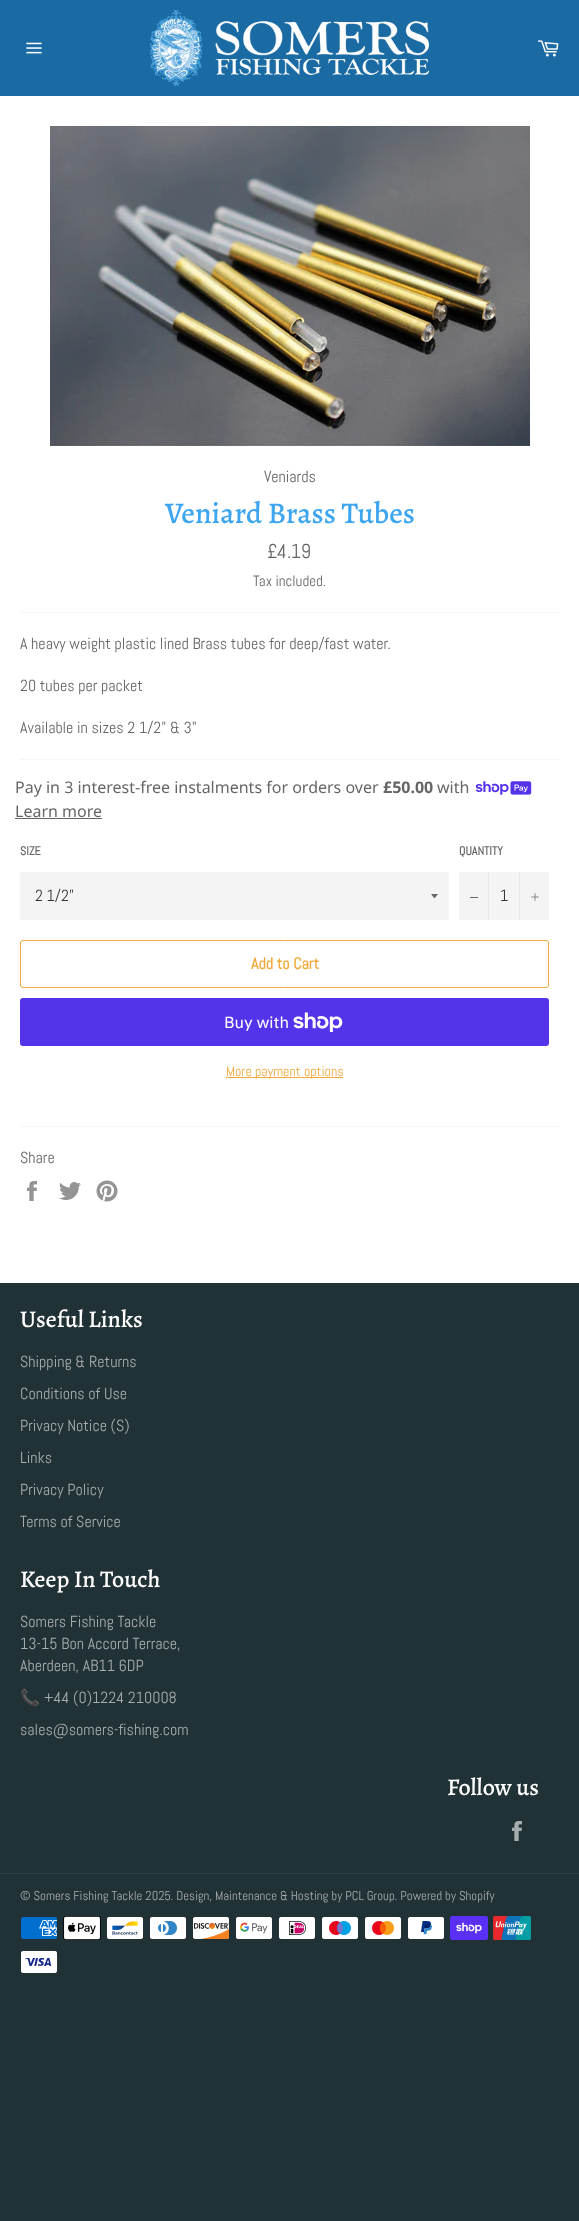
async function draw(canvas) {
	canvas.width = 579;
	canvas.height = 2221;
	const c = canvas.getContext('2d');
	c.miterLimit = 4;
	c.fontKerning = 'normal';
	async function loadImage(src) {
		const img = new Image();
		img.src = src;
		await img.decode();
		return img;
	}

	c.fillStyle = '#213236';
	c.fillRect(0, 0, 579, 2221);
	c.fillStyle = '#1a6aa3';
	c.fillRect(0, 0, 579, 96);
	c.drawImage(await loadImage('img1.png'), 26, 42, 16, 12);
	c.drawImage(await loadImage('img2.png'), 150, 10, 279, 76);
	c.drawImage(await loadImage('img3.png'), 537, 40, 22, 17);
	c.fillStyle = '#fff';
	c.fillRect(0, 96, 579, 1187);
	c.drawImage(await loadImage('img4.png'), 50, 126, 480, 320);
	c.font = '16px Abel';
	c.fillStyle = '#666';
	c.fillText('Veniards', 264, 482);
	c.font = '500 30px Alegreya';
	c.fillStyle = '#3ea6f0';
	c.fillText('Veniard Brass Tubes', 165, 523);
	c.font = '20px Abel';
	c.fillStyle = '#666';
	c.fillText('£4.19', 267, 558);
	c.font = '15px Abel';
	c.fillText('Tax included.', 253, 586);
	c.fillStyle = '#f7f7f7';
	c.fillRect(20, 612, 539, 1);
	c.font = '16px Abel';
	c.fillStyle = '#666';
	for (const [text, x, y] of [
		['A heavy weight plastic lined Brass tubes for deep/fast water.', 20, 649],
		['20 tubes per packet', 20, 691],
		['Available in sizes 2 1/2" & 3"', 20, 733],
	]) {
		c.fillText(text, x, y);
	}
	c.fillStyle = '#f7f7f7';
	c.fillRect(20, 759, 539, 1);
	c.font = '16px Noto Sans';
	c.fillStyle = '#666';
	c.fillText('Pay in 3 interest-free instalments for orders over', 15, 793);
	c.font = 'bold 16px Noto Sans';
	c.fillText('£50.00', 383, 793);
	c.font = '16px Noto Sans';
	c.fillText('with', 437, 793);
	c.drawImage(await loadImage('img5.png'), 475, 781, 57, 14);
	c.fillText('Learn more', 15, 817);
	c.fillRect(15, 818, 87, 1);
	c.font = 'bold 12px Abel';
	c.fillText('SIZE', 20, 855);
	c.fillStyle = '#f4f4f4';
	c.fillRect(20, 872, 429, 48);
	c.fillStyle = '#666';
	c.beginPath();
	c.moveTo(431, 894);
	c.bezierCurveTo(435.5, 899.5, 433.5, 899.5, 438, 894);
	c.closePath();
	c.fill();
	c.font = '16px Abel';
	c.fillStyle = '#333';
	c.fillText('2 1/2"', 35, 901);
	c.font = 'bold 12px Abel';
	c.fillStyle = '#666';
	c.fillText('QUANTITY', 459, 855);
	for (const [x, y, w, h, color] of [
		[459, 872, 90, 48, '#f4f4f4'],
		[488, 872, 1, 48, '#e7e7e7'],
		[470, 897, 8, 1, '#666'],
	]) {
		c.fillStyle = color;
		c.fillRect(x, y, w, h);
	}
	c.font = '16px Abel';
	c.fillStyle = '#333';
	c.fillText('1', 500, 901);
	c.fillStyle = '#e7e7e7';
	c.fillRect(519, 872, 1, 48);
	c.drawImage(await loadImage('img6.png'), 531, 893, 8, 8);
	c.beginPath();
	c.roundRect(20.5, 940.5, 528, 47, 2.5);
	c.strokeStyle = '#f0a93e';
	c.stroke();
	c.font = 'bold 16px Abel';
	c.fillStyle = '#f0a93e';
	c.fillText('Add to Cart', 251, 969);
	c.fillStyle = '#5433eb';
	c.beginPath();
	c.roundRect(20, 998, 529, 48, 3);
	c.fill();
	c.font = '16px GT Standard';
	c.fillStyle = '#fff';
	c.fillText('Buy with', 224, 1028);
	c.drawImage(await loadImage('img7.png'), 293, 1012, 50, 20);
	c.fillStyle = '#f0a93e';
	c.fillRect(226, 1077, 117, 1);
	c.font = '14px Abel';
	c.fillText('More payment options', 226, 1076);
	c.fillStyle = '#f7f7f7';
	c.fillRect(20, 1126, 539, 1);
	c.font = '16px Abel';
	c.fillStyle = '#666';
	c.fillText('Share', 20, 1163);
	c.drawImage(await loadImage('img8.png'), 27, 1181, 10, 20);
	c.drawImage(await loadImage('img9.png'), 59, 1182, 22, 18);
	c.drawImage(await loadImage('img10.png'), 96, 1180, 22, 22);
	c.font = '500 24px Alegreya';
	c.fillStyle = '#fff';
	c.fillText('Useful Links', 20, 1327);
	c.font = '16px Abel';
	c.fillStyle = '#a6adaf';
	for (const [text, x, y] of [
		['Shipping & Returns', 20, 1367],
		['Conditions of Use', 20, 1399],
		['Privacy Notice (S)', 20, 1431],
		['Links', 20, 1463],
		['Privacy Policy', 20, 1495],
		['Terms of Service', 20, 1527],
	]) {
		c.fillText(text, x, y);
	}
	c.font = '500 24px Alegreya';
	c.fillStyle = '#fff';
	c.fillText('Keep In Touch', 20, 1587);
	c.font = '16px Abel';
	c.fillStyle = '#a6adaf';
	for (const [text, x, y] of [
		['Somers Fishing Tackle', 20, 1627],
		['13-15 Bon Accord Terrace,', 20, 1649],
		['Aberdeen, AB11 6DP', 20, 1671],
	]) {
		c.fillText(text, x, y);
	}
	c.font = '16px Noto Color Emoji';
	c.fillText('📞', 20, 1703);
	c.font = '16px Abel';
	c.fillText('+44 (0)1224 210008', 44, 1703);
	c.fillText('sales@somers-fishing.com', 20, 1735);
	c.font = '500 24px Alegreya';
	c.fillStyle = '#fff';
	c.fillText('Follow us', 447, 1795);
	c.drawImage(await loadImage('img11.png'), 512, 1821, 10, 20);
	c.fillStyle = '#2b4146';
	c.fillRect(0, 1873, 579, 1);
	c.font = '12.8px Abel';
	c.fillStyle = '#a6adaf';
	c.fillText('© Somers Fishing Tackle 2025. Design, Maintenance & Hosting by PCL Group. Powered by Shopify', 20, 1900);
	c.drawImage(await loadImage('img12.png'), 21, 1917, 36, 22);
	c.drawImage(await loadImage('img13.png'), 63, 1916, 38, 24);
	c.drawImage(await loadImage('img14.png'), 107, 1917, 36, 22);
	c.drawImage(await loadImage('img15.png'), 150, 1917, 36, 22);
	c.drawImage(await loadImage('img16.png'), 193, 1917, 37, 22);
	c.drawImage(await loadImage('img17.png'), 236, 1917, 36, 22);
	c.drawImage(await loadImage('img18.png'), 279, 1917, 36, 22);
	c.drawImage(await loadImage('img19.png'), 322, 1917, 36, 22);
	c.drawImage(await loadImage('img20.png'), 365, 1917, 36, 22);
	c.drawImage(await loadImage('img21.png'), 408, 1917, 36, 22);
	c.drawImage(await loadImage('img22.png'), 450, 1916, 38, 24);
	c.drawImage(await loadImage('img23.png'), 493, 1916, 38, 24);
	c.drawImage(await loadImage('img24.png'), 21, 1951, 36, 22);
}

draw(document.querySelector('canvas'));
